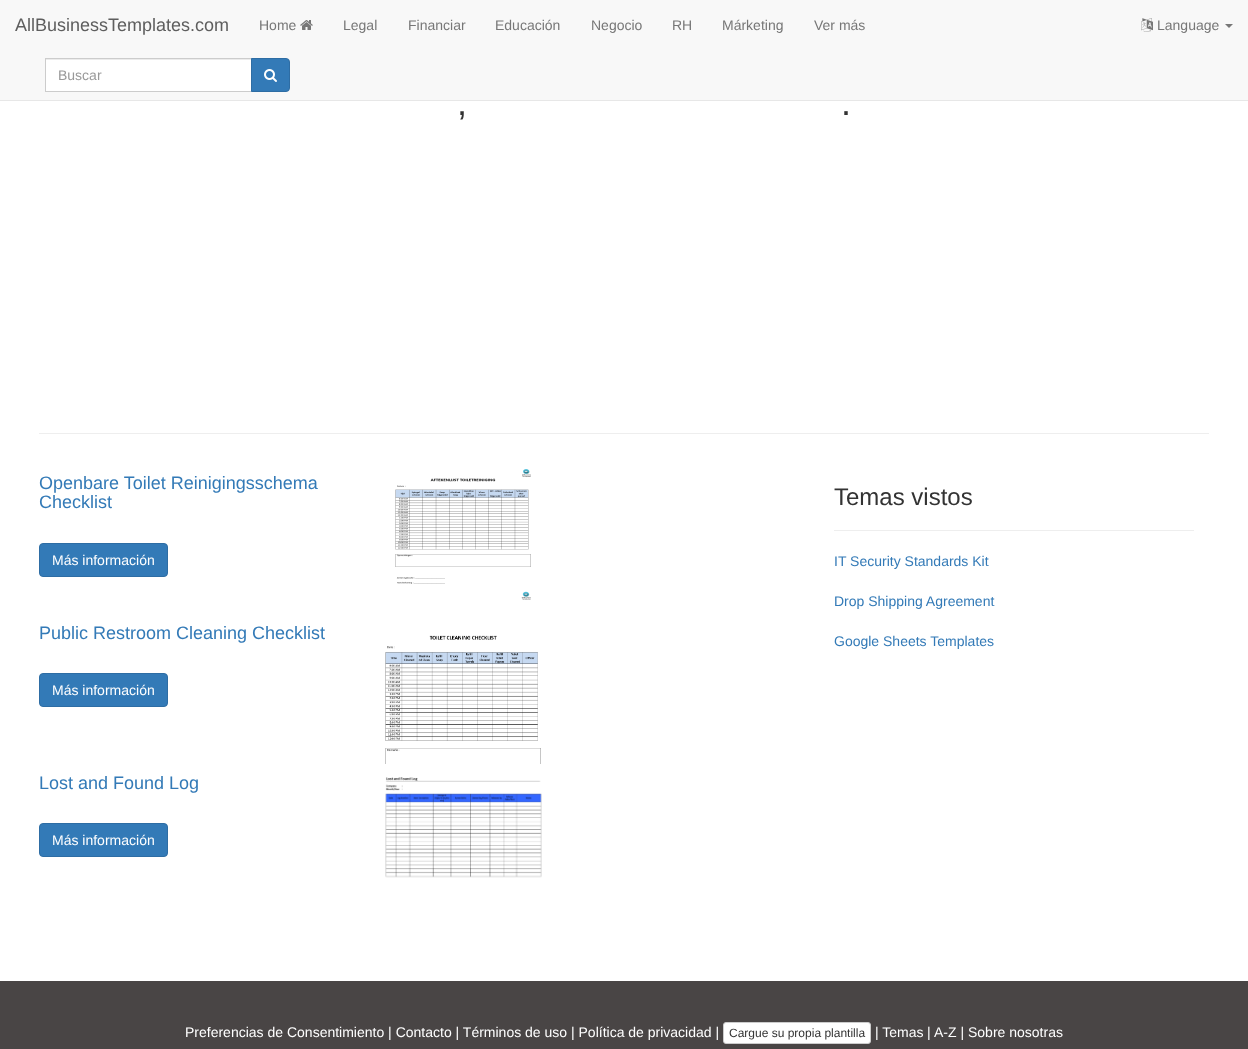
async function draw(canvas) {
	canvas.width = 1248;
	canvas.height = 1049;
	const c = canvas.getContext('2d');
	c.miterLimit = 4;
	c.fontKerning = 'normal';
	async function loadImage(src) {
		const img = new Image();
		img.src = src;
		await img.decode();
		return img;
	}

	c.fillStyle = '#fff';
	c.fillRect(0, 0, 1248, 1049);
	c.fillStyle = '#f8f8f8';
	c.fillRect(0, 0, 1248, 100);
	c.fillStyle = '#e7e7e7';
	c.fillRect(0, 100, 1248, 1);
	c.font = '18px Liberation Sans';
	c.fillStyle = '#5e5e5e';
	c.fillText('AllBusinessTemplates.com', 15, 31);
	c.font = '14px Liberation Sans';
	c.fillStyle = '#777';
	c.fillText('Home', 259, 30);
	c.drawImage(await loadImage('img1.png'), 300, 20, 13, 10);
	for (const [text, x, y] of [
		['Legal', 343, 30],
		['Financiar', 408, 30],
		['Educación', 495, 30],
		['Negocio', 591, 30],
		['RH', 672, 30],
		['Márketing', 722, 30],
		['Ver más', 814, 30],
	]) {
		c.fillText(text, x, y);
	}
	c.drawImage(await loadImage('img2.png'), 1141, 18, 12, 14);
	c.fillText('Language', 1157, 30);
	c.beginPath();
	c.moveTo(1225, 24);
	c.lineTo(1233, 24);
	c.lineTo(1229, 28);
	c.closePath();
	c.fill();
	c.fillStyle = '#fff';
	c.fillRect(46, 60, 205, 31);
	c.fillStyle = '#ececec';
	c.fillRect(46, 59, 205, 1);
	c.strokeStyle = '#ccc';
	c.strokeRect(45.5, 58.5, 206, 33);
	c.fillStyle = '#999';
	c.fillText('Buscar', 58, 80);
	c.fillStyle = '#337ab7';
	c.beginPath();
	c.roundRect(251.5, 58.5, 38, 33, [0, 3.5, 3.5, 0]);
	c.fill();
	c.strokeStyle = '#2e6da4';
	c.stroke();
	c.drawImage(await loadImage('img3.png'), 264, 69, 13, 13);
	c.font = '36px Liberation Sans';
	c.fillStyle = '#333';
	c.fillText(',', 457, 115);
	c.fillText('.', 841, 115);
	c.fillStyle = '#eee';
	c.fillRect(39, 433, 1170, 1);
	c.font = '18px Liberation Sans';
	c.fillStyle = '#337ab7';
	c.fillText('Openbare Toilet Reinigingsschema', 39, 489);
	c.fillText('Checklist', 39, 508);
	c.beginPath();
	c.roundRect(39.5, 543.5, 128, 33, 3.5);
	c.fill();
	c.stroke();
	c.font = '14px Liberation Sans';
	c.fillStyle = '#fff';
	c.fillText('Más información', 52, 565);
	c.drawImage(await loadImage('img4.png'), 395, 469, 136, 131);
	c.font = '18px Liberation Sans';
	c.fillStyle = '#337ab7';
	c.fillText('Public Restroom Cleaning Checklist', 39, 639);
	c.beginPath();
	c.roundRect(39.5, 673.5, 128, 33, 3.5);
	c.fill();
	c.stroke();
	c.font = '14px Liberation Sans';
	c.fillStyle = '#fff';
	c.fillText('Más información', 52, 695);
	c.drawImage(await loadImage('img5.png'), 385, 635, 156, 129);
	c.font = '18px Liberation Sans';
	c.fillStyle = '#337ab7';
	c.fillText('Lost and Found Log', 39, 789);
	c.beginPath();
	c.roundRect(39.5, 823.5, 128, 33, 3.5);
	c.fill();
	c.stroke();
	c.font = '14px Liberation Sans';
	c.fillStyle = '#fff';
	c.fillText('Más información', 52, 845);
	c.drawImage(await loadImage('img6.png'), 385, 777, 157, 101);
	c.font = '24px Liberation Sans';
	c.fillStyle = '#333';
	c.fillText('Temas vistos', 834, 505);
	c.fillStyle = '#eee';
	c.fillRect(834, 530, 360, 1);
	c.font = '14px Liberation Sans';
	c.fillStyle = '#337ab7';
	for (const [text, x, y] of [
		['IT Security Standards Kit', 834, 566],
		['Drop Shipping Agreement', 834, 606],
		['Google Sheets Templates', 834, 646],
	]) {
		c.fillText(text, x, y);
	}
	c.fillStyle = '#494545';
	c.fillRect(0, 981, 1248, 68);
	c.fillStyle = '#fff';
	c.fillText('Preferencias de Consentimiento | Contacto | Términos de uso | Política de privacidad |', 185, 1037);
	c.beginPath();
	c.roundRect(723.5, 1022.5, 147, 21, 2.5);
	c.fill();
	c.strokeStyle = '#ccc';
	c.stroke();
	c.font = '12px Liberation Sans';
	c.fillStyle = '#333';
	c.fillText('Cargue su propia plantilla', 729, 1037);
	c.font = '14px Liberation Sans';
	c.fillStyle = '#fff';
	for (const [text, x, y] of [
		['| Temas', 875, 1037],
		['|', 927, 1037],
		['A-Z | Sobre nosotras', 934, 1037],
	]) {
		c.fillText(text, x, y);
	}
}

draw(document.querySelector('canvas'));
